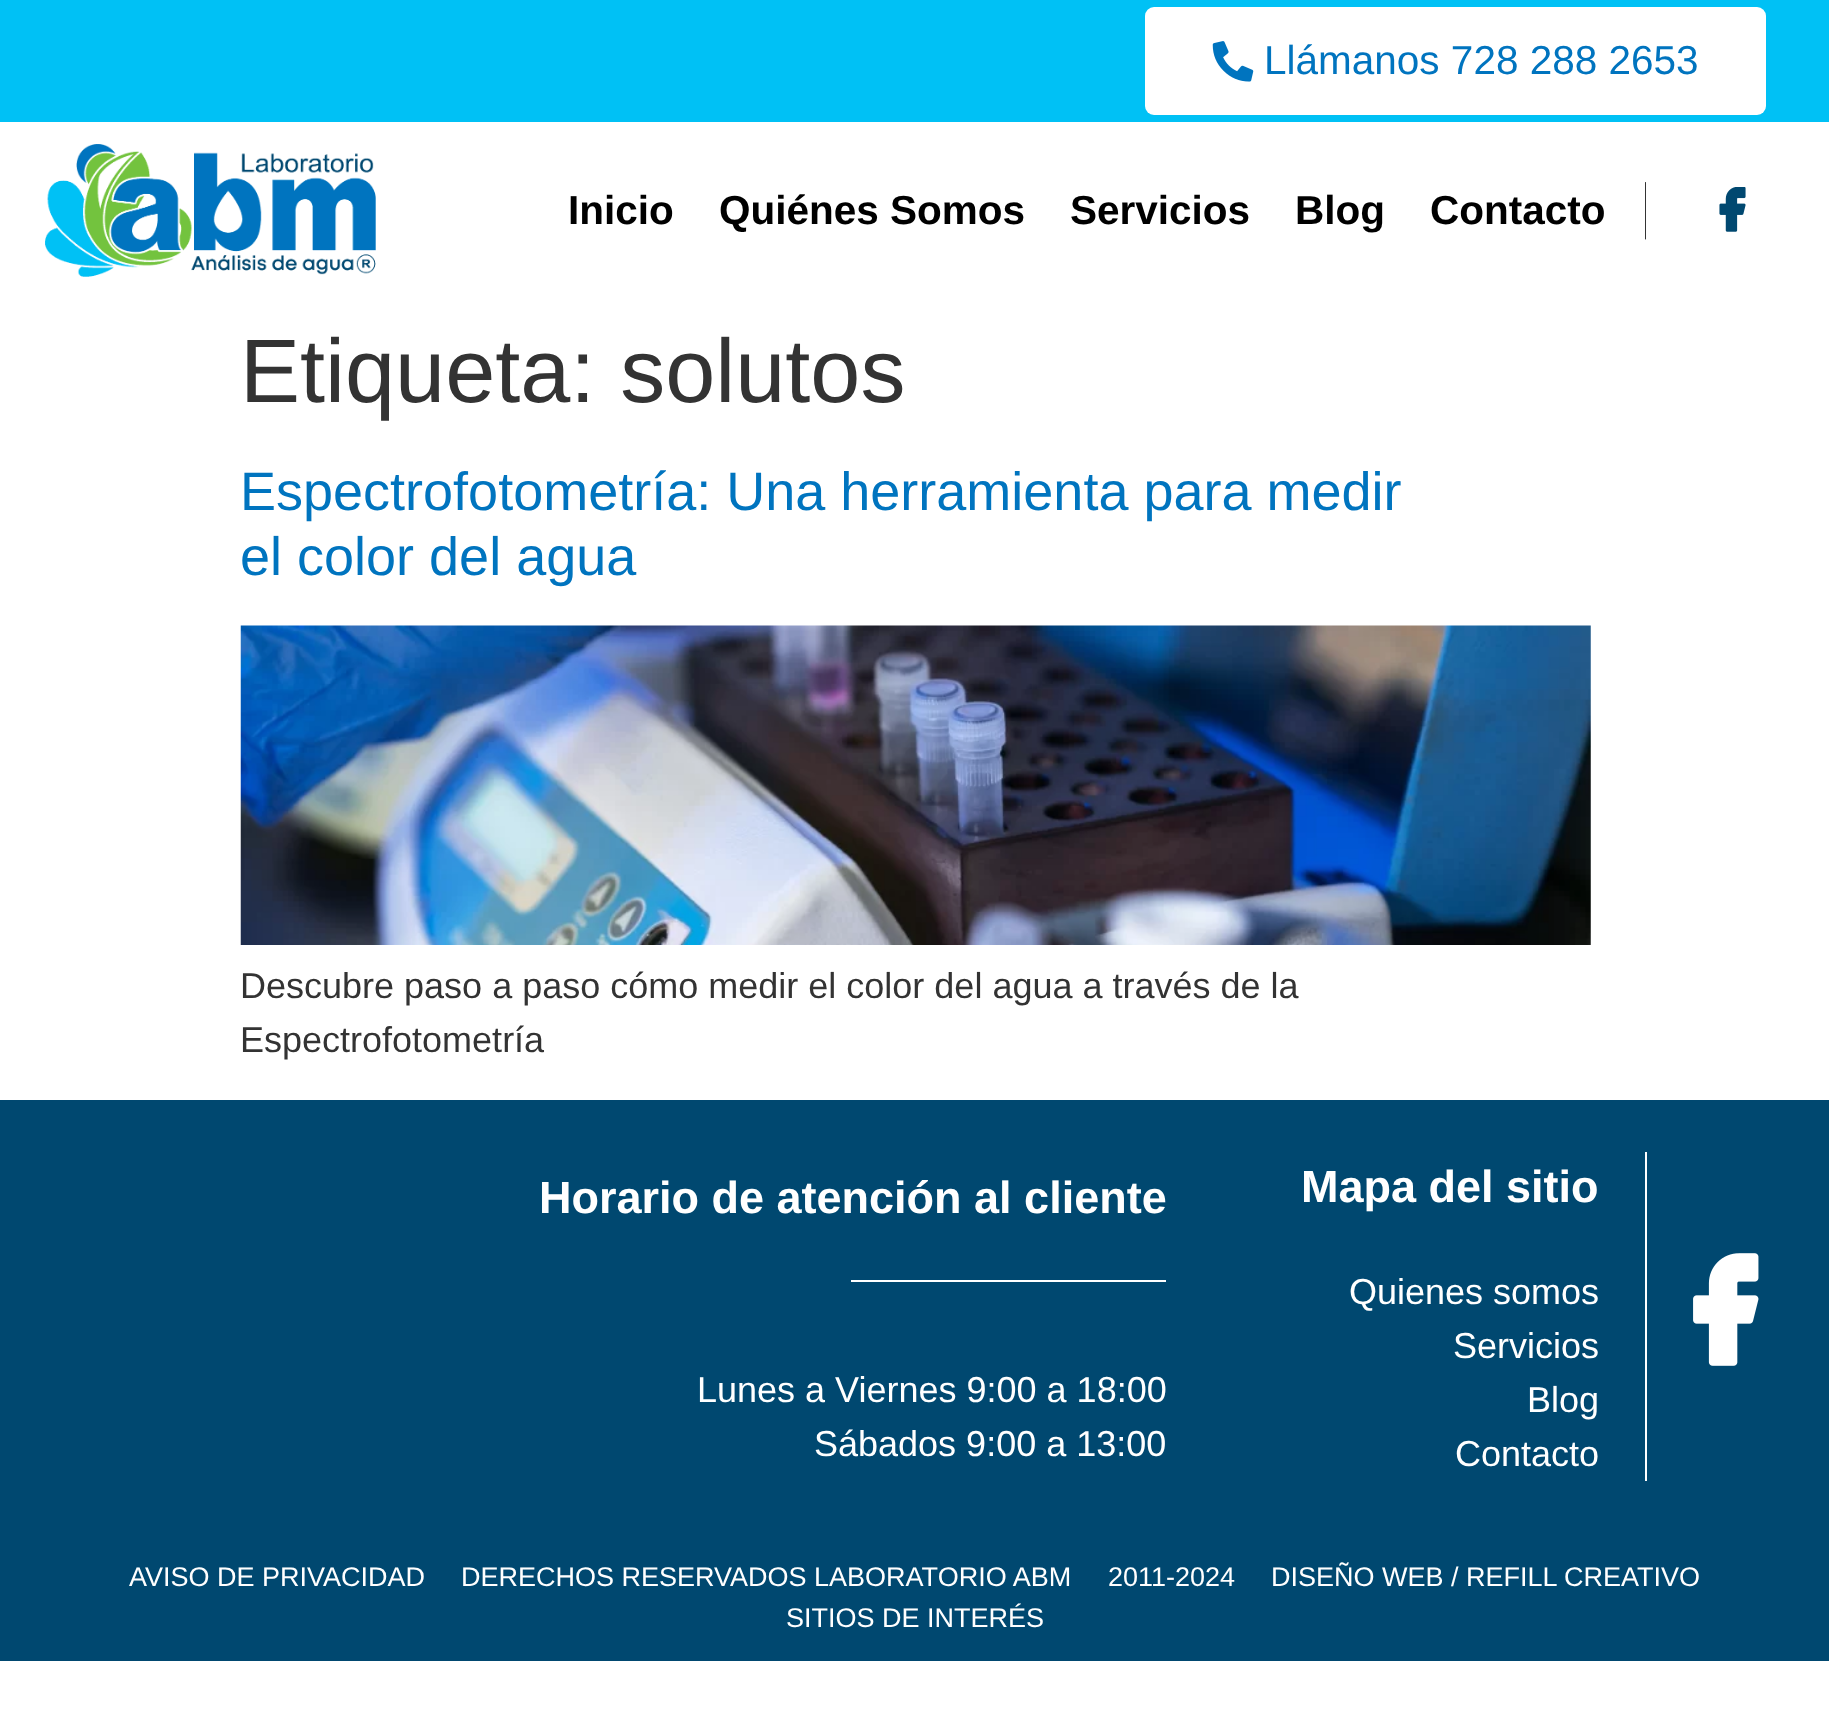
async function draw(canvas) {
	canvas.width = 1829;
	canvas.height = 1730;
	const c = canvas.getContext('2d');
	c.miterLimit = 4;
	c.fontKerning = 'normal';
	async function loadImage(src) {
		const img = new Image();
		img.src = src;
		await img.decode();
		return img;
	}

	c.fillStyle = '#fff';
	c.fillRect(0, 0, 1829, 1730);
	c.fillStyle = '#00c1f5';
	c.fillRect(0, 0, 1829, 122);
	c.fillStyle = '#fff';
	c.beginPath();
	c.roundRect(1145, 7, 621, 108, 9);
	c.fill();
	c.drawImage(await loadImage('img1.png'), 1212, 41, 42, 41);
	c.font = '40.5px Liberation Sans';
	c.fillStyle = '#0074bf';
	c.fillText('Llámanos 728 288 2653', 1264, 74);
	c.drawImage(await loadImage('img2.png'), 45, 144, 331, 133);
	c.font = 'bold 40.5px Liberation Sans';
	c.fillStyle = '#000';
	for (const [text, x, y] of [
		['Inicio', 568, 224],
		['Quiénes Somos', 719, 224],
		['Servicios', 1070, 224],
		['Blog', 1295, 224],
		['Contacto', 1430, 224],
	]) {
		c.fillText(text, x, y);
	}
	c.beginPath();
	c.moveTo(1645.5, 182.5);
	c.lineTo(1645.5, 239);
	c.strokeStyle = '#000';
	c.lineWidth = 0.8;
	c.lineCap = 'round';
	c.stroke();
	c.drawImage(await loadImage('img3.png'), 1719, 187, 27, 45);
	c.font = '90px Liberation Sans';
	c.fillStyle = '#333';
	c.fillText('Etiqueta: solutos', 240, 402);
	c.font = '54px Liberation Sans';
	c.fillStyle = '#0074bf';
	c.fillText('Espectrofotometría: Una herramienta para medir', 240, 510);
	c.fillText('el color del agua', 240, 575);
	c.drawImage(await loadImage('img4.png'), 240, 625, 1351, 320);
	c.font = '36px Liberation Sans';
	c.fillStyle = '#333';
	c.fillText('Descubre paso a paso cómo medir el color del agua a través de la', 240, 998);
	c.fillText('Espectrofotometría', 240, 1052);
	c.fillStyle = '#004870';
	c.fillRect(0, 1100, 1829, 561);
	c.font = 'bold 45px Liberation Sans';
	c.fillStyle = '#fff';
	c.fillText('Horario de atención al cliente', 539, 1213);
	c.fillRect(851, 1280, 315, 2);
	c.font = '36px Liberation Sans';
	c.fillText('Lunes a Viernes 9:00 a 18:00', 697, 1402);
	c.fillText('Sábados 9:00 a 13:00', 814, 1456);
	c.fillRect(1645, 1152, 2, 329);
	c.font = 'bold 45px Liberation Sans';
	c.fillText('Mapa del sitio', 1301, 1202);
	c.font = '36px Liberation Sans';
	for (const [text, x, y] of [
		['Quienes somos', 1349, 1304],
		['Servicios', 1453, 1358],
		['Blog', 1527, 1412],
		['Contacto', 1455, 1466],
	]) {
		c.fillText(text, x, y);
	}
	c.drawImage(await loadImage('img5.png'), 1693, 1253, 66, 113);
	c.font = '27px Liberation Sans';
	for (const [text, x, y] of [
		['AVISO DE PRIVACIDAD', 129, 1586],
		['DERECHOS RESERVADOS LABORATORIO ABM', 461, 1586],
		['2011-2024', 1108, 1586],
		['DISEÑO WEB / REFILL CREATIVO', 1271, 1586],
		['SITIOS DE INTERÉS', 786, 1627],
	]) {
		c.fillText(text, x, y);
	}
}

draw(document.querySelector('canvas'));
